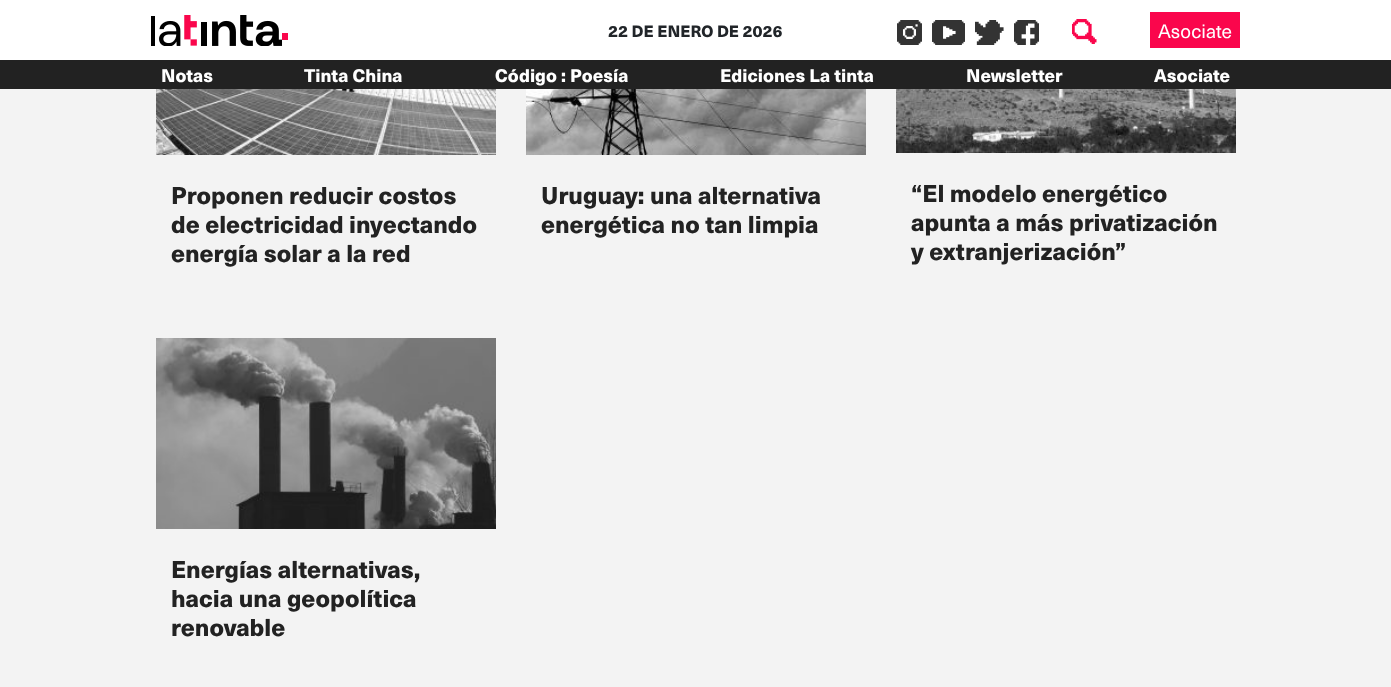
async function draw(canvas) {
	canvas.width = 1391;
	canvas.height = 687;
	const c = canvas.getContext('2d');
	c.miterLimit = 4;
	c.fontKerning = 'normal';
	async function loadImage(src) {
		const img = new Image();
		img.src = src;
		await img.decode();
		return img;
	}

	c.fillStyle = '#f3f3f3';
	c.fillRect(0, 0, 1391, 687);
	c.fillStyle = '#fff';
	c.fillRect(0, 0, 1391, 60);
	c.drawImage(await loadImage('img1.png'), 151, 15, 137, 31);
	c.font = '900 16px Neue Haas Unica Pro';
	c.fillStyle = '#212529';
	c.fillText('22 DE ENERO DE 2026', 608, 37);
	c.drawImage(await loadImage('img2.png'), 897, 20, 25, 25);
	c.drawImage(await loadImage('img3.png'), 932, 20, 33, 25);
	c.drawImage(await loadImage('img4.png'), 975, 20, 29, 25);
	c.drawImage(await loadImage('img5.png'), 1014, 20, 25, 25);
	c.drawImage(await loadImage('img6.png'), 1072, 19, 25, 25);
	c.fillStyle = '#fa064c';
	c.fillRect(1150, 12, 90, 36);
	c.font = '19px Neue Haas Unica Pro';
	c.fillStyle = '#fff';
	c.fillText('Asociate', 1158, 38);
	c.fillStyle = '#222';
	c.fillRect(0, 60, 1391, 29);
	c.font = '900 18px Neue Haas Unica Pro';
	c.fillStyle = '#fff';
	for (const [text, x, y] of [
		['Notas', 161, 82],
		['Tinta China', 304, 82],
		['Código : Poesía', 495, 82],
		['Ediciones La tinta', 720, 82],
		['Newsletter', 966, 82],
		['Asociate', 1154, 82],
	]) {
		c.fillText(text, x, y);
	}
	c.drawImage(await loadImage('img7.png'), 156, 89, 340, 66);
	c.font = '900 24px Neue Haas Unica Pro';
	c.fillStyle = '#222';
	for (const [text, x, y] of [
		['Proponen reducir costos', 171, 204],
		['de electricidad inyectando', 171, 233],
		['energía solar a la red', 171, 262],
	]) {
		c.fillText(text, x, y);
	}
	c.drawImage(await loadImage('img8.png'), 526, 89, 340, 66);
	c.fillText('Uruguay: una alternativa', 541, 204);
	c.fillText('energética no tan limpia', 541, 233);
	c.drawImage(await loadImage('img9.png'), 896, 89, 340, 64);
	for (const [text, x, y] of [
		['“El modelo energético', 911, 202],
		['apunta a más privatización', 911, 231],
		['y extranjerización”', 911, 260],
	]) {
		c.fillText(text, x, y);
	}
	c.drawImage(await loadImage('img10.png'), 156, 338, 340, 191);
	for (const [text, x, y] of [
		['Energías alternativas,', 171, 578],
		['hacia una geopolítica', 171, 607],
		['renovable', 171, 636],
	]) {
		c.fillText(text, x, y);
	}
}

draw(document.querySelector('canvas'));
